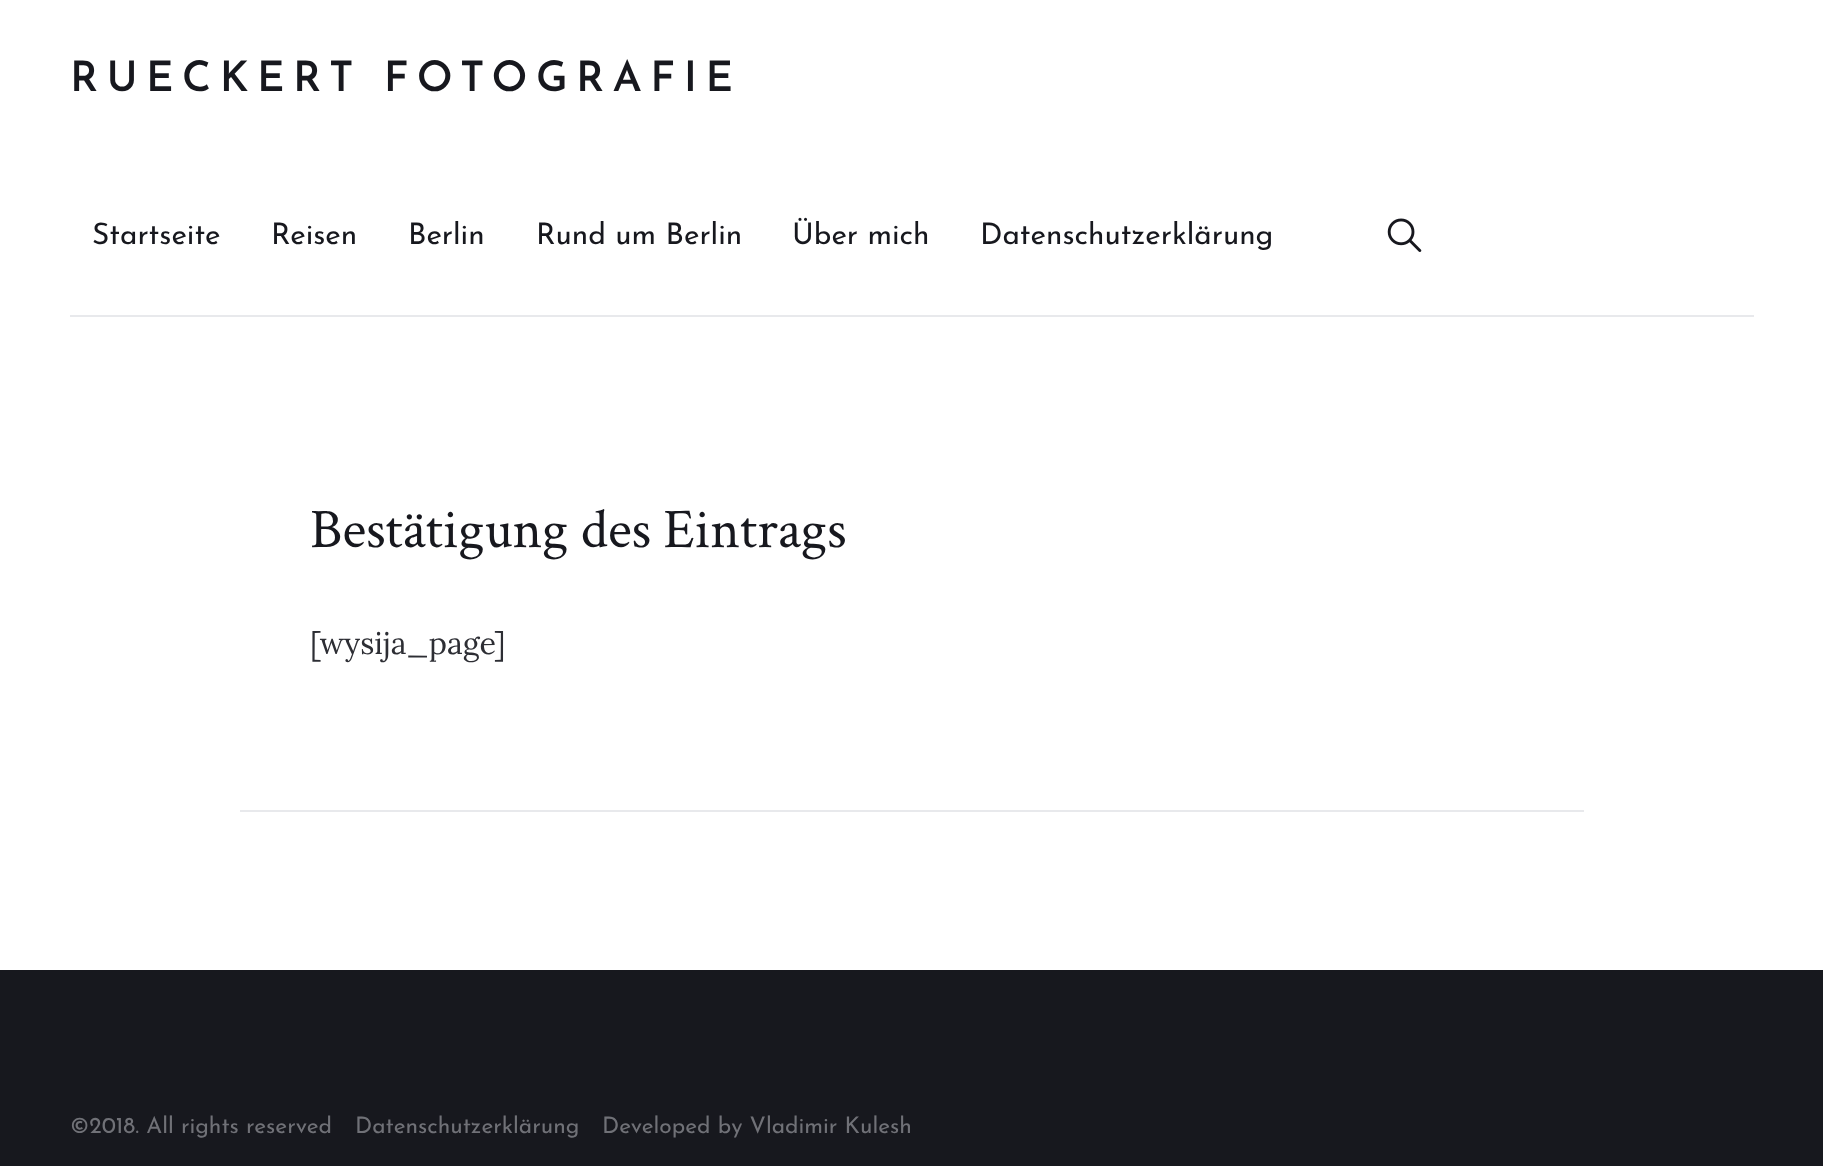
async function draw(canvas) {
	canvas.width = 1823;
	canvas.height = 1166;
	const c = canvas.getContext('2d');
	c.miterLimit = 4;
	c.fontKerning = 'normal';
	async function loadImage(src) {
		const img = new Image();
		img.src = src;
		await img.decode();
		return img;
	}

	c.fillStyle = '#fff';
	c.fillRect(0, 0, 1823, 1166);
	c.letterSpacing = '8.4px';
	c.font = '600 42px Josefin Sans';
	c.fillStyle = '#17181e';
	c.fillText('RUECKERT FOTOGRAFIE', 70, 91);
	c.letterSpacing = '0px';
	c.font = '29.75px Josefin Sans';
	for (const [text, x, y] of [
		['Startseite', 92, 244],
		['Reisen', 271, 244],
		['Berlin', 408, 244],
		['Rund um Berlin', 536, 244],
		['Über mich', 792, 244],
		['Datenschutzerklärung', 980, 244],
	]) {
		c.fillText(text, x, y);
	}
	c.drawImage(await loadImage('img1.png'), 1387, 218, 35, 34);
	c.fillStyle = '#e8e9ec';
	c.fillRect(70, 315, 1684, 2);
	c.fillRect(240, 810, 1344, 2);
	c.font = '56px Crimson Text';
	c.fillStyle = '#17181e';
	c.fillText('Bestätigung des Eintrags', 310, 547);
	c.font = '30.5px Lora';
	c.fillStyle = '#2d2e34';
	c.fillText('[wysija_page]', 310, 654);
	c.fillStyle = '#17181e';
	c.fillRect(0, 970, 1823, 196);
	c.font = '22.75px Josefin Sans';
	c.fillStyle = '#707177';
	for (const [text, x, y] of [
		['©2018. All rights reserved', 70, 1133],
		['Datenschutzerklärung', 355, 1133],
		['Developed by Vladimir Kulesh', 602, 1133],
	]) {
		c.fillText(text, x, y);
	}
}

draw(document.querySelector('canvas'));
